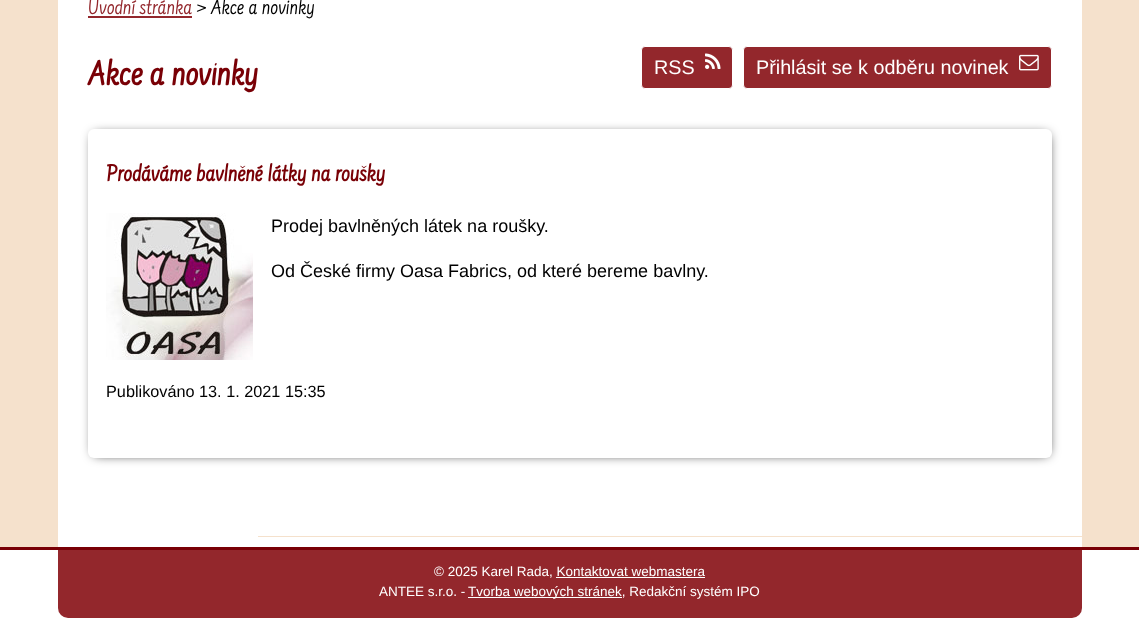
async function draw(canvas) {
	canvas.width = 1139;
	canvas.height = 631;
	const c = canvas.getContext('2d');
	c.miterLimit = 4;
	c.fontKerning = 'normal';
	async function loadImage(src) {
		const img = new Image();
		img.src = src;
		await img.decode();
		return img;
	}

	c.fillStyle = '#fff';
	c.fillRect(0, 0, 1139, 631);
	for (const [x, y, w, h, color] of [
		[0, 0, 1139, 547, '#f5e1cc'],
		[58, 536, 200, 1, '#fff'],
		[58, 0, 1024, 536, '#fff'],
	]) {
		c.fillStyle = color;
		c.fillRect(x, y, w, h);
	}
	c.font = '22px Farsan';
	c.fillStyle = '#93272c';
	c.fillText('Úvodní stránka', 88, 14);
	c.fillRect(88, 16, 104, 2);
	c.fillStyle = '#000';
	c.fillText('> Akce a novinky', 196, 14);
	c.font = 'bold 36px Farsan';
	c.fillStyle = '#790006';
	c.fillText('Akce a novinky', 88, 85);
	c.fillStyle = '#93272c';
	c.beginPath();
	c.roundRect(641.5, 46.5, 91, 42, 3.5);
	c.fill();
	c.strokeStyle = '#fff';
	c.stroke();
	c.font = '19.75px Liberation Sans';
	c.fillStyle = '#fff';
	c.fillText('RSS', 654, 74);
	c.drawImage(await loadImage('img1.png'), 705, 53, 16, 16);
	c.fillStyle = '#93272c';
	c.beginPath();
	c.roundRect(743.5, 46.5, 308, 42, 3.5);
	c.fill();
	c.stroke();
	c.fillStyle = '#fff';
	c.fillText('Přihlásit se k odběru novinek', 756, 74);
	c.drawImage(await loadImage('img2.png'), 1019, 54, 20, 17);
	c.fillStyle = '#000';
	c.filter = 'blur(6px)';
	c.beginPath();
	c.roundRect(94, 135, 954, 319, 1);
	c.fill();
	c.filter = 'none';
	c.fillStyle = '#fff';
	c.beginPath();
	c.roundRect(88, 129, 964, 329, 6);
	c.fill();
	c.font = 'bold 24.25px Farsan';
	c.fillStyle = '#790006';
	c.fillText('Prodáváme bavlněné látky na roušky', 106, 181);
	c.drawImage(await loadImage('img3.png'), 106, 213, 147, 147);
	c.font = '18px Liberation Sans';
	c.fillStyle = '#000';
	c.fillText('Prodej bavlněných látek na roušky.', 271, 232);
	c.fillText('Od České firmy Oasa Fabrics, od které bereme bavlny.', 271, 277);
	c.font = '16.25px Liberation Sans';
	c.fillText('Publikováno 13. 1. 2021 15:35', 106, 397);
	c.fillStyle = '#fff';
	c.fillRect(58, 537, 1024, 10);
	c.fillStyle = '#790006';
	c.fillRect(0, 547, 1139, 3);
	c.fillStyle = '#93272c';
	c.beginPath();
	c.roundRect(58, 550, 1024, 68, [0, 0, 10, 10]);
	c.fill();
	c.font = '13.5px Liberation Sans';
	c.fillStyle = '#fff';
	c.fillText('© 2025 Karel Rada, Kontaktovat webmastera', 434, 576);
	c.fillRect(556, 577, 149, 1);
	c.fillText('ANTEE s.r.o. -', 379, 596);
	c.fillRect(468, 597, 154, 1);
	c.fillText('Tvorba webových stránek, Redakční systém IPO', 468, 596);
}

draw(document.querySelector('canvas'));
